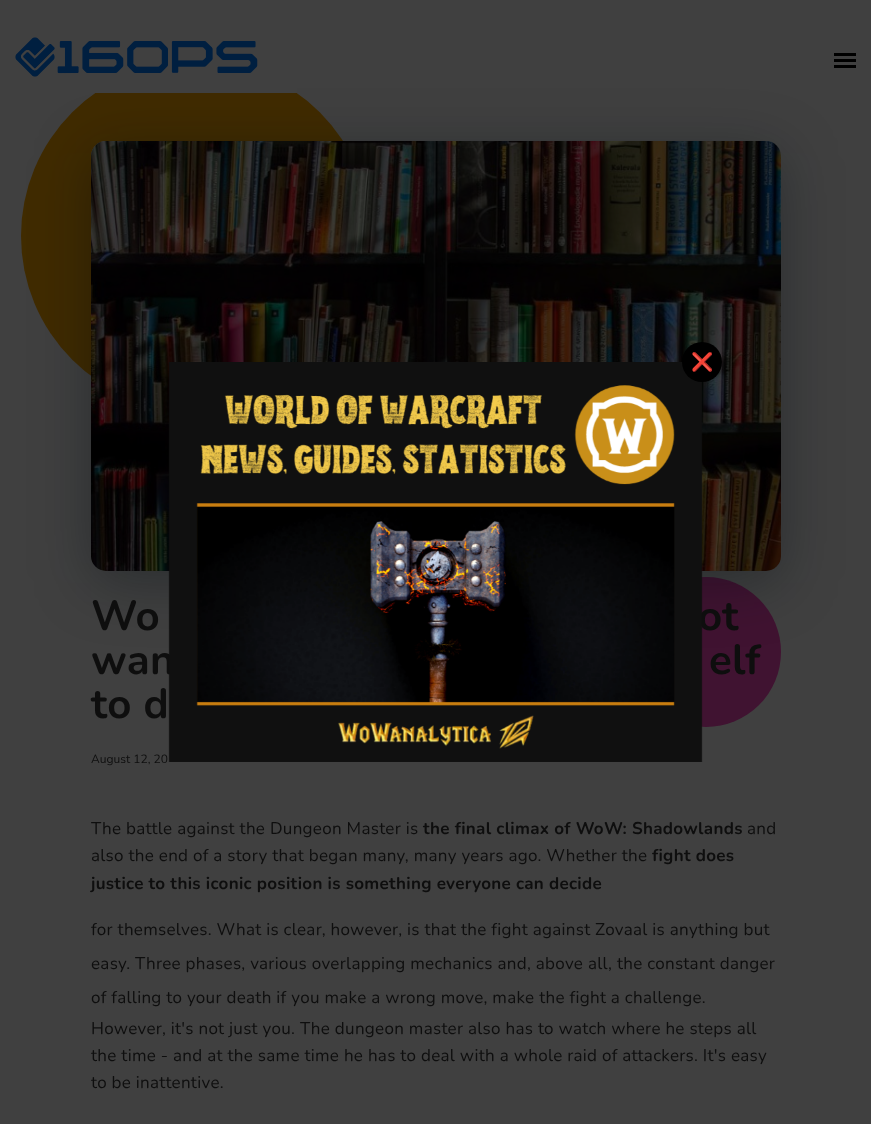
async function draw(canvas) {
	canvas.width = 871;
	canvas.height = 1124;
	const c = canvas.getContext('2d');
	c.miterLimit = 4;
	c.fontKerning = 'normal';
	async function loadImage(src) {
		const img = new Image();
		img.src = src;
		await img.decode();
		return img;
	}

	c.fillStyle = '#404040';
	c.fillRect(0, 0, 871, 1124);
	c.fillStyle = '#402b00';
	c.beginPath();
	c.arc(196, 236, 175, 0, 2 * Math.PI);
	c.fill();
	c.fillStyle = '#401331';
	c.beginPath();
	c.arc(706, 652, 75, 0, 2 * Math.PI);
	c.fill();
	c.fillStyle = '#00080d59';
	c.filter = 'blur(29px)';
	c.beginPath();
	c.roundRect(91, 153, 690, 430, 15);
	c.fill();
	c.filter = 'none';
	c.fillStyle = '#404040';
	c.beginPath();
	c.roundRect(91, 141, 690, 430, 15);
	c.fill();
	c.drawImage(await loadImage('img3.png'), 91, 141, 690, 430);
	c.letterSpacing = '0.3px';
	c.font = 'bold 42px Nunito';
	c.fillStyle = '#0e0e0e';
	c.fillText('ot', 698, 630);
	c.fillText('wan', 91, 674);
	c.drawImage(await loadImage('img1.png'), 168, 362, 535, 400);
	c.fillStyle = '#000';
	c.beginPath();
	c.arc(702, 362, 20, 0, 2 * Math.PI);
	c.fill();
	c.letterSpacing = '0px';
	c.font = '18px Noto Color Emoji';
	c.fillStyle = '#fff';
	c.fillText('❌', 691, 368);
	c.fillStyle = '#404040';
	c.fillRect(95, 61, 202, 32);
	c.drawImage(await loadImage('img2.png'), 15, 37, 243, 40);
	for (const [x, y, w, h, color] of [
		[834, 53, 22, 3, '#000'],
		[834, 59, 22, 3, '#000'],
		[834, 65, 22, 3, '#000'],
	]) {
		c.fillStyle = color;
		c.fillRect(x, y, w, h);
	}
	c.letterSpacing = '0.3px';
	c.font = 'bold 42px Nunito';
	c.fillStyle = '#0e0e0e';
	for (const [text, x, y] of [
		['Wo', 91, 630],
		['elf', 709, 674],
		['to d', 91, 718],
	]) {
		c.fillText(text, x, y);
	}
	c.letterSpacing = '0px';
	c.font = '12px Nunito';
	c.fillText('August 12, 20', 91, 763);
	c.letterSpacing = '0.3px';
	c.font = '17px Nunito';
	c.fillText('The battle against the Dungeon Master is', 91, 834);
	c.font = 'bold 17px Nunito';
	c.fillText('the final climax of WoW: Shadowlands', 423, 834);
	c.font = '17px Nunito';
	c.fillText('and', 747, 834);
	c.fillText('also the end of a story that began many, many years ago. Whether the', 91, 861);
	c.font = 'bold 17px Nunito';
	c.fillText('fight does', 652, 861);
	c.fillText('justice to this iconic position is something everyone can decide', 91, 889);
	c.font = '17px Nunito';
	for (const [text, x, y] of [
		['for themselves. What is clear, however, is that the fight against Zovaal is anything but', 91, 935],
		['easy. Three phases, various overlapping mechanics and, above all, the constant danger', 91, 969],
		['of falling to your death if you make a wrong move, make the fight a challenge.', 91, 1003],
		['However, it\'s not just you. The dungeon master also has to watch where he steps all', 91, 1034],
		['the time - and at the same time he has to deal with a whole raid of attackers. It\'s easy', 91, 1061],
		['to be inattentive.', 91, 1088],
	]) {
		c.fillText(text, x, y);
	}
}

draw(document.querySelector('canvas'));
